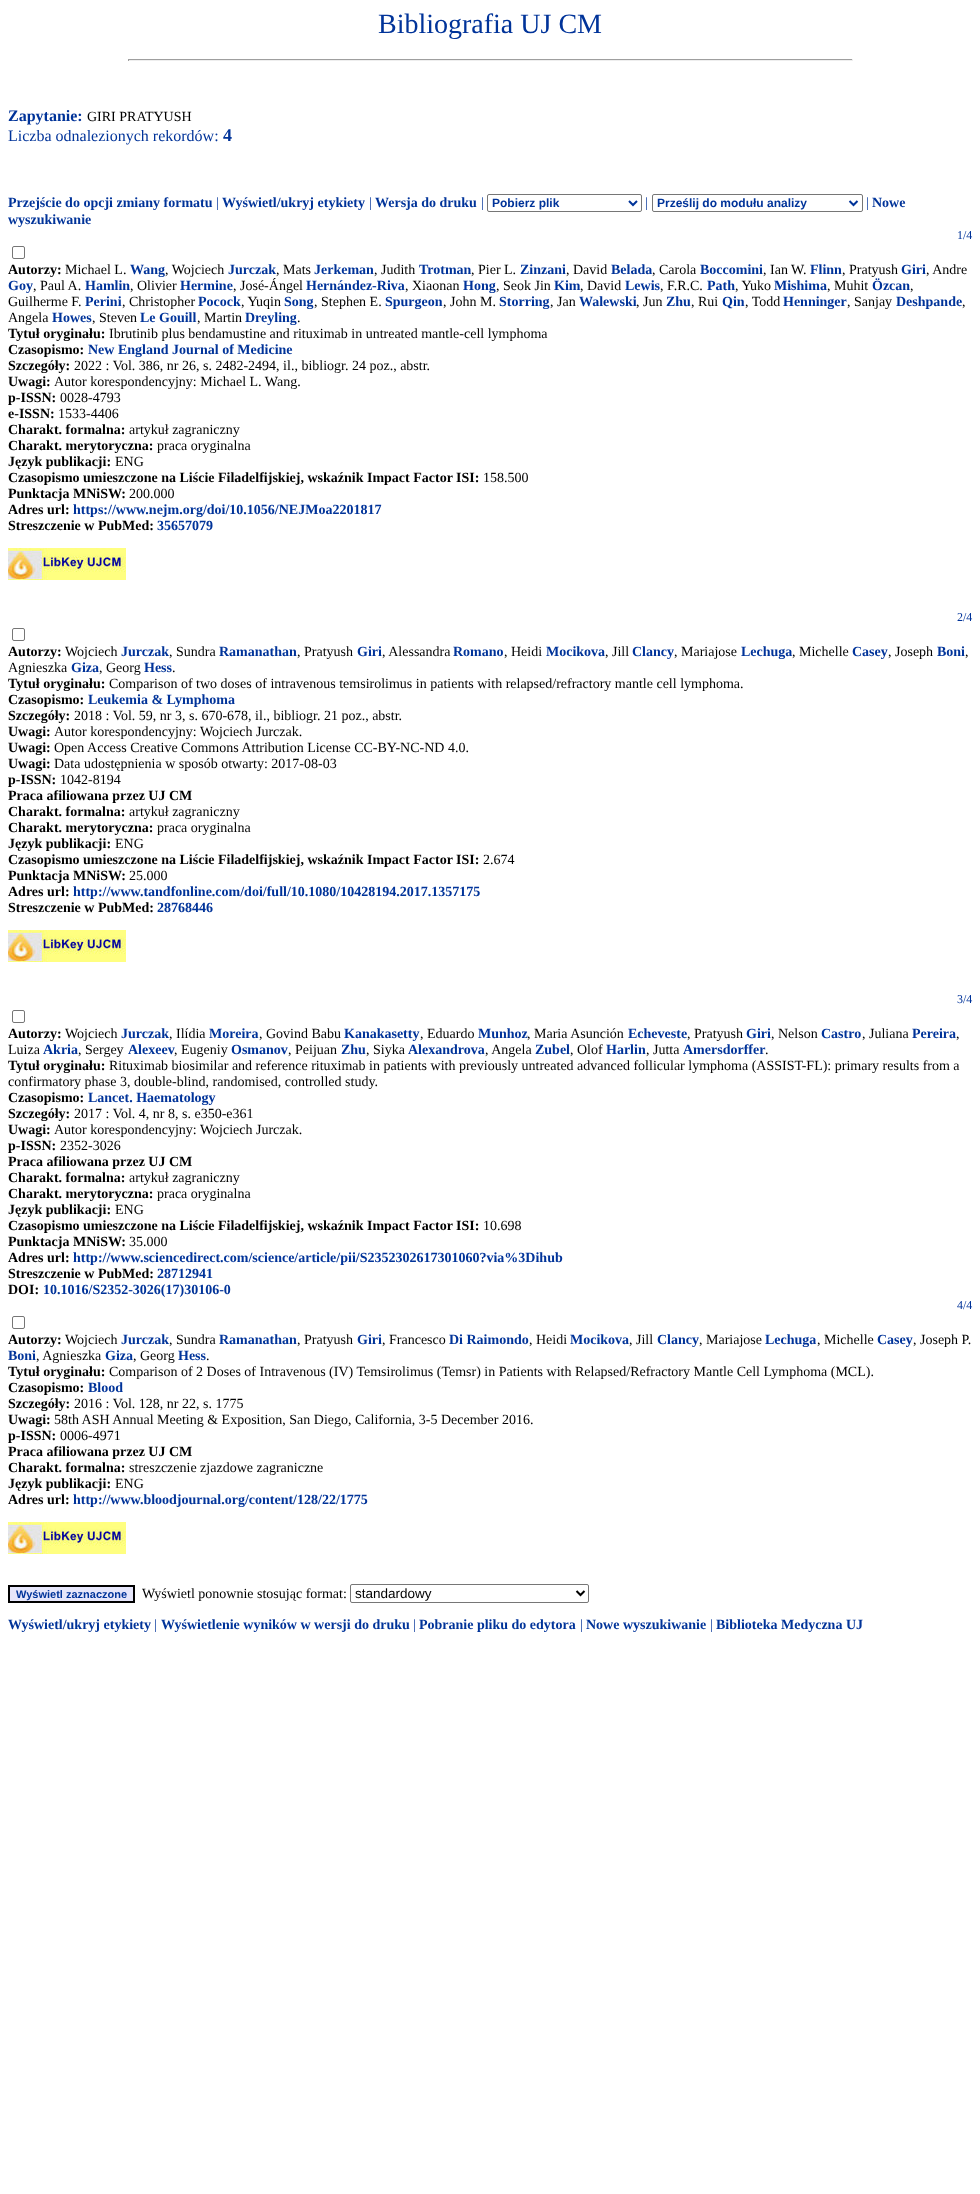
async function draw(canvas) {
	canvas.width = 980;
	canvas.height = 2194;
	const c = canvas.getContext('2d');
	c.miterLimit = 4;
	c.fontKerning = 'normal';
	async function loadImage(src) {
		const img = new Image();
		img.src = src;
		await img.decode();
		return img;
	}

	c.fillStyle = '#fff';
	c.fillRect(0, 0, 980, 2194);
	c.font = '28px Liberation Serif';
	c.fillStyle = '#039';
	c.fillText('Bibliografia UJ CM', 378, 33);
	for (const [x, y, w, h, color] of [
		[128, 59, 725, 1, '#9f9f9f'],
		[852, 59, 1, 2, '#eee'],
		[128, 60, 725, 1, '#eee'],
		[128, 59, 1, 2, '#9f9f9f'],
	]) {
		c.fillStyle = color;
		c.fillRect(x, y, w, h);
	}
	c.font = 'bold 16px Liberation Serif';
	c.fillStyle = '#039';
	c.fillText('Zapytanie:', 8, 121);
	c.font = '14px Liberation Serif';
	c.fillStyle = '#000';
	c.fillText('GIRI PRATYUSH', 87, 121);
	c.font = '16px Liberation Serif';
	c.fillStyle = '#039';
	c.fillText('Liczba odnalezionych rekordów:', 8, 141);
	c.font = 'bold 18px Liberation Serif';
	c.fillText('4', 223, 141);
	c.font = 'bold 14px Liberation Serif';
	c.fillText('Przejście do opcji zmiany formatu', 8, 207);
	c.font = '14px Liberation Serif';
	c.fillText('|', 216, 207);
	c.font = 'bold 14px Liberation Serif';
	c.fillText('Wyświetl/ukryj etykiety', 222, 207);
	c.font = '14px Liberation Serif';
	c.fillText('|', 369, 207);
	c.font = 'bold 14px Liberation Serif';
	c.fillText('Wersja do druku', 375, 207);
	c.font = '14px Liberation Serif';
	c.fillText('|', 481, 207);
	c.beginPath();
	c.roundRect(487.5, 194.5, 154, 17, 1.5);
	c.strokeStyle = '#767676';
	c.stroke();
	c.beginPath();
	c.moveTo(629, 201);
	c.lineTo(633, 205);
	c.lineTo(637, 201);
	c.strokeStyle = '#039';
	c.lineWidth = 2;
	c.stroke();
	c.font = 'bold 12px Liberation Sans';
	c.fillText('Pobierz plik', 492, 207);
	c.font = '14px Liberation Serif';
	c.fillText('|', 645, 207);
	c.beginPath();
	c.roundRect(652.5, 194.5, 210, 17, 1.5);
	c.strokeStyle = '#767676';
	c.lineWidth = 1;
	c.stroke();
	c.beginPath();
	c.moveTo(849.5, 201);
	c.lineTo(853.5, 205);
	c.lineTo(857.5, 201);
	c.strokeStyle = '#039';
	c.lineWidth = 2;
	c.stroke();
	c.font = 'bold 12px Liberation Sans';
	c.fillText('Prześlij do modułu analizy', 657, 207);
	c.font = '14px Liberation Serif';
	c.fillText('|', 866, 207);
	c.font = 'bold 14px Liberation Serif';
	c.fillText('Nowe', 872, 207);
	c.fillText('wyszukiwanie', 8, 224);
	c.font = '12px Liberation Serif';
	c.fillText('1/4', 957, 239);
	c.beginPath();
	c.roundRect(12.5, 246.5, 12, 12, 1.5);
	c.strokeStyle = '#767676';
	c.lineWidth = 1;
	c.stroke();
	c.font = 'bold 14px Liberation Serif';
	c.fillStyle = '#000';
	c.fillText('Autorzy:', 8, 274);
	c.font = '14px Liberation Serif';
	c.fillText('Michael L.', 65, 274);
	c.font = 'bold 14px Liberation Serif';
	c.fillStyle = '#039';
	c.fillText('Wang', 130, 274);
	c.font = '14px Liberation Serif';
	c.fillStyle = '#000';
	c.fillText(', Wojciech', 165, 274);
	c.font = 'bold 14px Liberation Serif';
	c.fillStyle = '#039';
	c.fillText('Jurczak', 228, 274);
	c.font = '14px Liberation Serif';
	c.fillStyle = '#000';
	c.fillText(', Mats', 276, 274);
	c.font = 'bold 14px Liberation Serif';
	c.fillStyle = '#039';
	c.fillText('Jerkeman', 314, 274);
	c.font = '14px Liberation Serif';
	c.fillStyle = '#000';
	c.fillText(', Judith', 374, 274);
	c.font = 'bold 14px Liberation Serif';
	c.fillStyle = '#039';
	c.fillText('Trotman', 419, 274);
	c.font = '14px Liberation Serif';
	c.fillStyle = '#000';
	c.fillText(', Pier L.', 471, 274);
	c.font = 'bold 14px Liberation Serif';
	c.fillStyle = '#039';
	c.fillText('Zinzani', 520, 274);
	c.font = '14px Liberation Serif';
	c.fillStyle = '#000';
	c.fillText(', David', 566, 274);
	c.font = 'bold 14px Liberation Serif';
	c.fillStyle = '#039';
	c.fillText('Belada', 611, 274);
	c.font = '14px Liberation Serif';
	c.fillStyle = '#000';
	c.fillText(', Carola', 652, 274);
	c.font = 'bold 14px Liberation Serif';
	c.fillStyle = '#039';
	c.fillText('Boccomini', 700, 274);
	c.font = '14px Liberation Serif';
	c.fillStyle = '#000';
	c.fillText(', Ian W.', 763, 274);
	c.font = 'bold 14px Liberation Serif';
	c.fillStyle = '#039';
	c.fillText('Flinn', 810, 274);
	c.font = '14px Liberation Serif';
	c.fillStyle = '#000';
	c.fillText(', Pratyush', 842, 274);
	c.font = 'bold 14px Liberation Serif';
	c.fillStyle = '#039';
	c.fillText('Giri', 901, 274);
	c.font = '14px Liberation Serif';
	c.fillStyle = '#000';
	c.fillText(', Andre', 926, 274);
	c.font = 'bold 14px Liberation Serif';
	c.fillStyle = '#039';
	c.fillText('Goy', 8, 290);
	c.font = '14px Liberation Serif';
	c.fillStyle = '#000';
	c.fillText(', Paul A.', 33, 290);
	c.font = 'bold 14px Liberation Serif';
	c.fillStyle = '#039';
	c.fillText('Hamlin', 85, 290);
	c.font = '14px Liberation Serif';
	c.fillStyle = '#000';
	c.fillText(', Olivier', 130, 290);
	c.font = 'bold 14px Liberation Serif';
	c.fillStyle = '#039';
	c.fillText('Hermine', 180, 290);
	c.font = '14px Liberation Serif';
	c.fillStyle = '#000';
	c.fillText(', José-Ángel', 233, 290);
	c.font = 'bold 14px Liberation Serif';
	c.fillStyle = '#039';
	c.fillText('Hernández-Riva', 306, 290);
	c.font = '14px Liberation Serif';
	c.fillStyle = '#000';
	c.fillText(', Xiaonan', 405, 290);
	c.font = 'bold 14px Liberation Serif';
	c.fillStyle = '#039';
	c.fillText('Hong', 463, 290);
	c.font = '14px Liberation Serif';
	c.fillStyle = '#000';
	c.fillText(', Seok Jin', 496, 290);
	c.font = 'bold 14px Liberation Serif';
	c.fillStyle = '#039';
	c.fillText('Kim', 554, 290);
	c.font = '14px Liberation Serif';
	c.fillStyle = '#000';
	c.fillText(', David', 580, 290);
	c.font = 'bold 14px Liberation Serif';
	c.fillStyle = '#039';
	c.fillText('Lewis', 625, 290);
	c.font = '14px Liberation Serif';
	c.fillStyle = '#000';
	c.fillText(', F.R.C.', 660, 290);
	c.font = 'bold 14px Liberation Serif';
	c.fillStyle = '#039';
	c.fillText('Path', 707, 290);
	c.font = '14px Liberation Serif';
	c.fillStyle = '#000';
	c.fillText(', Yuko', 735, 290);
	c.font = 'bold 14px Liberation Serif';
	c.fillStyle = '#039';
	c.fillText('Mishima', 774, 290);
	c.font = '14px Liberation Serif';
	c.fillStyle = '#000';
	c.fillText(', Muhit', 827, 290);
	c.font = 'bold 14px Liberation Serif';
	c.fillStyle = '#039';
	c.fillText('Özcan', 872, 290);
	c.font = '14px Liberation Serif';
	c.fillStyle = '#000';
	c.fillText(',', 910, 290);
	c.fillText('Guilherme F.', 8, 306);
	c.font = 'bold 14px Liberation Serif';
	c.fillStyle = '#039';
	c.fillText('Perini', 85, 306);
	c.font = '14px Liberation Serif';
	c.fillStyle = '#000';
	c.fillText(', Christopher', 122, 306);
	c.font = 'bold 14px Liberation Serif';
	c.fillStyle = '#039';
	c.fillText('Pocock', 198, 306);
	c.font = '14px Liberation Serif';
	c.fillStyle = '#000';
	c.fillText(', Yuqin', 241, 306);
	c.font = 'bold 14px Liberation Serif';
	c.fillStyle = '#039';
	c.fillText('Song', 284, 306);
	c.font = '14px Liberation Serif';
	c.fillStyle = '#000';
	c.fillText(', Stephen E.', 314, 306);
	c.font = 'bold 14px Liberation Serif';
	c.fillStyle = '#039';
	c.fillText('Spurgeon', 385, 306);
	c.font = '14px Liberation Serif';
	c.fillStyle = '#000';
	c.fillText(', John M.', 443, 306);
	c.font = 'bold 14px Liberation Serif';
	c.fillStyle = '#039';
	c.fillText('Storring', 499, 306);
	c.font = '14px Liberation Serif';
	c.fillStyle = '#000';
	c.fillText(', Jan', 550, 306);
	c.font = 'bold 14px Liberation Serif';
	c.fillStyle = '#039';
	c.fillText('Walewski', 579, 306);
	c.font = '14px Liberation Serif';
	c.fillStyle = '#000';
	c.fillText(', Jun', 636, 306);
	c.font = 'bold 14px Liberation Serif';
	c.fillStyle = '#039';
	c.fillText('Zhu', 666, 306);
	c.font = '14px Liberation Serif';
	c.fillStyle = '#000';
	c.fillText(', Rui', 691, 306);
	c.font = 'bold 14px Liberation Serif';
	c.fillStyle = '#039';
	c.fillText('Qin', 722, 306);
	c.font = '14px Liberation Serif';
	c.fillStyle = '#000';
	c.fillText(', Todd', 745, 306);
	c.font = 'bold 14px Liberation Serif';
	c.fillStyle = '#039';
	c.fillText('Henninger', 783, 306);
	c.font = '14px Liberation Serif';
	c.fillStyle = '#000';
	c.fillText(', Sanjay', 847, 306);
	c.font = 'bold 14px Liberation Serif';
	c.fillStyle = '#039';
	c.fillText('Deshpande', 896, 306);
	c.font = '14px Liberation Serif';
	c.fillStyle = '#000';
	c.fillText(',', 962, 306);
	c.fillText('Angela', 8, 322);
	c.font = 'bold 14px Liberation Serif';
	c.fillStyle = '#039';
	c.fillText('Howes', 52, 322);
	c.font = '14px Liberation Serif';
	c.fillStyle = '#000';
	c.fillText(', Steven', 92, 322);
	c.font = 'bold 14px Liberation Serif';
	c.fillStyle = '#039';
	c.fillText('Le Gouill', 140, 322);
	c.font = '14px Liberation Serif';
	c.fillStyle = '#000';
	c.fillText(', Martin', 197, 322);
	c.font = 'bold 14px Liberation Serif';
	c.fillStyle = '#039';
	c.fillText('Dreyling', 245, 322);
	c.font = '14px Liberation Serif';
	c.fillStyle = '#000';
	c.fillText('.', 297, 322);
	c.font = 'bold 14px Liberation Serif';
	c.fillText('Tytuł oryginału:', 8, 338);
	c.font = '14px Liberation Serif';
	c.fillText('Ibrutinib plus bendamustine and rituximab in untreated mantle-cell lymphoma', 109, 338);
	c.font = 'bold 14px Liberation Serif';
	c.fillText('Czasopismo:', 8, 354);
	c.fillStyle = '#039';
	c.fillText('New England Journal of Medicine', 88, 354);
	c.fillStyle = '#000';
	c.fillText('Szczegóły:', 8, 370);
	c.font = '14px Liberation Serif';
	c.fillText('2022 : Vol. 386, nr 26, s. 2482-2494, il., bibliogr. 24 poz., abstr.', 74, 370);
	c.font = 'bold 14px Liberation Serif';
	c.fillText('Uwagi:', 8, 386);
	c.font = '14px Liberation Serif';
	c.fillText('Autor korespondencyjny: Michael L. Wang.', 54, 386);
	c.font = 'bold 14px Liberation Serif';
	c.fillText('p-ISSN:', 8, 402);
	c.font = '14px Liberation Serif';
	c.fillText('0028-4793', 60, 402);
	c.font = 'bold 14px Liberation Serif';
	c.fillText('e-ISSN:', 8, 418);
	c.font = '14px Liberation Serif';
	c.fillText('1533-4406', 58, 418);
	c.font = 'bold 14px Liberation Serif';
	c.fillText('Charakt. formalna:', 8, 434);
	c.font = '14px Liberation Serif';
	c.fillText('artykuł zagraniczny', 129, 434);
	c.font = 'bold 14px Liberation Serif';
	c.fillText('Charakt. merytoryczna:', 8, 450);
	c.font = '14px Liberation Serif';
	c.fillText('praca oryginalna', 157, 450);
	c.font = 'bold 14px Liberation Serif';
	c.fillText('Język publikacji:', 8, 466);
	c.font = '14px Liberation Serif';
	c.fillText('ENG', 115, 466);
	c.font = 'bold 14px Liberation Serif';
	c.fillText('Czasopismo umieszczone na Liście Filadelfijskiej, wskaźnik Impact Factor ISI:', 8, 482);
	c.font = '14px Liberation Serif';
	c.fillText('158.500', 483, 482);
	c.font = 'bold 14px Liberation Serif';
	c.fillText('Punktacja MNiSW:', 8, 498);
	c.font = '14px Liberation Serif';
	c.fillText('200.000', 129, 498);
	c.font = 'bold 14px Liberation Serif';
	c.fillText('Adres url:', 8, 514);
	c.fillStyle = '#039';
	c.fillText('https://www.nejm.org/doi/10.1056/NEJMoa2201817', 73, 514);
	c.fillStyle = '#000';
	c.fillText('Streszczenie w PubMed:', 8, 530);
	c.fillStyle = '#039';
	c.fillText('35657079', 157, 530);
	c.drawImage(await loadImage('img1.png'), 8, 548, 118, 32);
	c.font = '12px Liberation Serif';
	c.fillText('2/4', 957, 621);
	c.beginPath();
	c.roundRect(12.5, 628.5, 12, 12, 1.5);
	c.stroke();
	c.font = 'bold 14px Liberation Serif';
	c.fillStyle = '#000';
	c.fillText('Autorzy:', 8, 656);
	c.font = '14px Liberation Serif';
	c.fillText('Wojciech', 65, 656);
	c.font = 'bold 14px Liberation Serif';
	c.fillStyle = '#039';
	c.fillText('Jurczak', 121, 656);
	c.font = '14px Liberation Serif';
	c.fillStyle = '#000';
	c.fillText(', Sundra', 169, 656);
	c.font = 'bold 14px Liberation Serif';
	c.fillStyle = '#039';
	c.fillText('Ramanathan', 219, 656);
	c.font = '14px Liberation Serif';
	c.fillStyle = '#000';
	c.fillText(', Pratyush', 297, 656);
	c.font = 'bold 14px Liberation Serif';
	c.fillStyle = '#039';
	c.fillText('Giri', 357, 656);
	c.font = '14px Liberation Serif';
	c.fillStyle = '#000';
	c.fillText(', Alessandra', 382, 656);
	c.font = 'bold 14px Liberation Serif';
	c.fillStyle = '#039';
	c.fillText('Romano', 453, 656);
	c.font = '14px Liberation Serif';
	c.fillStyle = '#000';
	c.fillText(', Heidi', 504, 656);
	c.font = 'bold 14px Liberation Serif';
	c.fillStyle = '#039';
	c.fillText('Mocikova', 546, 656);
	c.font = '14px Liberation Serif';
	c.fillStyle = '#000';
	c.fillText(', Jill', 605, 656);
	c.font = 'bold 14px Liberation Serif';
	c.fillStyle = '#039';
	c.fillText('Clancy', 632, 656);
	c.font = '14px Liberation Serif';
	c.fillStyle = '#000';
	c.fillText(', Mariajose', 674, 656);
	c.font = 'bold 14px Liberation Serif';
	c.fillStyle = '#039';
	c.fillText('Lechuga', 741, 656);
	c.font = '14px Liberation Serif';
	c.fillStyle = '#000';
	c.fillText(', Michelle', 792, 656);
	c.font = 'bold 14px Liberation Serif';
	c.fillStyle = '#039';
	c.fillText('Casey', 852, 656);
	c.font = '14px Liberation Serif';
	c.fillStyle = '#000';
	c.fillText(', Joseph', 888, 656);
	c.font = 'bold 14px Liberation Serif';
	c.fillStyle = '#039';
	c.fillText('Boni', 937, 656);
	c.font = '14px Liberation Serif';
	c.fillStyle = '#000';
	c.fillText(',', 965, 656);
	c.fillText('Agnieszka', 8, 672);
	c.font = 'bold 14px Liberation Serif';
	c.fillStyle = '#039';
	c.fillText('Giza', 71, 672);
	c.font = '14px Liberation Serif';
	c.fillStyle = '#000';
	c.fillText(', Georg', 99, 672);
	c.font = 'bold 14px Liberation Serif';
	c.fillStyle = '#039';
	c.fillText('Hess', 144, 672);
	c.font = '14px Liberation Serif';
	c.fillStyle = '#000';
	c.fillText('.', 172, 672);
	c.font = 'bold 14px Liberation Serif';
	c.fillText('Tytuł oryginału:', 8, 688);
	c.font = '14px Liberation Serif';
	c.fillText('Comparison of two doses of intravenous temsirolimus in patients with relapsed/refractory mantle cell lymphoma.', 109, 688);
	c.font = 'bold 14px Liberation Serif';
	c.fillText('Czasopismo:', 8, 704);
	c.fillStyle = '#039';
	c.fillText('Leukemia & Lymphoma', 88, 704);
	c.fillStyle = '#000';
	c.fillText('Szczegóły:', 8, 720);
	c.font = '14px Liberation Serif';
	c.fillText('2018 : Vol. 59, nr 3, s. 670-678, il., bibliogr. 21 poz., abstr.', 74, 720);
	c.font = 'bold 14px Liberation Serif';
	c.fillText('Uwagi:', 8, 736);
	c.font = '14px Liberation Serif';
	c.fillText('Autor korespondencyjny: Wojciech Jurczak.', 54, 736);
	c.font = 'bold 14px Liberation Serif';
	c.fillText('Uwagi:', 8, 752);
	c.font = '14px Liberation Serif';
	c.fillText('Open Access Creative Commons Attribution License CC-BY-NC-ND 4.0.', 54, 752);
	c.font = 'bold 14px Liberation Serif';
	c.fillText('Uwagi:', 8, 768);
	c.font = '14px Liberation Serif';
	c.fillText('Data udostępnienia w sposób otwarty: 2017-08-03', 54, 768);
	c.font = 'bold 14px Liberation Serif';
	c.fillText('p-ISSN:', 8, 784);
	c.font = '14px Liberation Serif';
	c.fillText('1042-8194', 60, 784);
	c.font = 'bold 14px Liberation Serif';
	c.fillText('Praca afiliowana przez UJ CM', 8, 800);
	c.fillText('Charakt. formalna:', 8, 816);
	c.font = '14px Liberation Serif';
	c.fillText('artykuł zagraniczny', 129, 816);
	c.font = 'bold 14px Liberation Serif';
	c.fillText('Charakt. merytoryczna:', 8, 832);
	c.font = '14px Liberation Serif';
	c.fillText('praca oryginalna', 157, 832);
	c.font = 'bold 14px Liberation Serif';
	c.fillText('Język publikacji:', 8, 848);
	c.font = '14px Liberation Serif';
	c.fillText('ENG', 115, 848);
	c.font = 'bold 14px Liberation Serif';
	c.fillText('Czasopismo umieszczone na Liście Filadelfijskiej, wskaźnik Impact Factor ISI:', 8, 864);
	c.font = '14px Liberation Serif';
	c.fillText('2.674', 483, 864);
	c.font = 'bold 14px Liberation Serif';
	c.fillText('Punktacja MNiSW:', 8, 880);
	c.font = '14px Liberation Serif';
	c.fillText('25.000', 129, 880);
	c.font = 'bold 14px Liberation Serif';
	c.fillText('Adres url:', 8, 896);
	c.fillStyle = '#039';
	c.fillText('http://www.tandfonline.com/doi/full/10.1080/10428194.2017.1357175', 73, 896);
	c.fillStyle = '#000';
	c.fillText('Streszczenie w PubMed:', 8, 912);
	c.fillStyle = '#039';
	c.fillText('28768446', 157, 912);
	c.drawImage(await loadImage('img1.png'), 8, 930, 118, 32);
	c.font = '12px Liberation Serif';
	c.fillText('3/4', 957, 1003);
	c.beginPath();
	c.roundRect(12.5, 1010.5, 12, 12, 1.5);
	c.stroke();
	c.font = 'bold 14px Liberation Serif';
	c.fillStyle = '#000';
	c.fillText('Autorzy:', 8, 1038);
	c.font = '14px Liberation Serif';
	c.fillText('Wojciech', 65, 1038);
	c.font = 'bold 14px Liberation Serif';
	c.fillStyle = '#039';
	c.fillText('Jurczak', 121, 1038);
	c.font = '14px Liberation Serif';
	c.fillStyle = '#000';
	c.fillText(', Ilídia', 169, 1038);
	c.font = 'bold 14px Liberation Serif';
	c.fillStyle = '#039';
	c.fillText('Moreira', 209, 1038);
	c.font = '14px Liberation Serif';
	c.fillStyle = '#000';
	c.fillText(', Govind Babu', 259, 1038);
	c.font = 'bold 14px Liberation Serif';
	c.fillStyle = '#039';
	c.fillText('Kanakasetty', 344, 1038);
	c.font = '14px Liberation Serif';
	c.fillStyle = '#000';
	c.fillText(', Eduardo', 420, 1038);
	c.font = 'bold 14px Liberation Serif';
	c.fillStyle = '#039';
	c.fillText('Munhoz', 478, 1038);
	c.font = '14px Liberation Serif';
	c.fillStyle = '#000';
	c.fillText(', Maria Asunción', 527, 1038);
	c.font = 'bold 14px Liberation Serif';
	c.fillStyle = '#039';
	c.fillText('Echeveste', 628, 1038);
	c.font = '14px Liberation Serif';
	c.fillStyle = '#000';
	c.fillText(', Pratyush', 687, 1038);
	c.font = 'bold 14px Liberation Serif';
	c.fillStyle = '#039';
	c.fillText('Giri', 746, 1038);
	c.font = '14px Liberation Serif';
	c.fillStyle = '#000';
	c.fillText(', Nelson', 771, 1038);
	c.font = 'bold 14px Liberation Serif';
	c.fillStyle = '#039';
	c.fillText('Castro', 821, 1038);
	c.font = '14px Liberation Serif';
	c.fillStyle = '#000';
	c.fillText(', Juliana', 862, 1038);
	c.font = 'bold 14px Liberation Serif';
	c.fillStyle = '#039';
	c.fillText('Pereira', 912, 1038);
	c.font = '14px Liberation Serif';
	c.fillStyle = '#000';
	c.fillText(',', 956, 1038);
	c.fillText('Luiza', 8, 1054);
	c.font = 'bold 14px Liberation Serif';
	c.fillStyle = '#039';
	c.fillText('Akria', 43, 1054);
	c.font = '14px Liberation Serif';
	c.fillStyle = '#000';
	c.fillText(', Sergey', 78, 1054);
	c.font = 'bold 14px Liberation Serif';
	c.fillStyle = '#039';
	c.fillText('Alexeev', 128, 1054);
	c.font = '14px Liberation Serif';
	c.fillStyle = '#000';
	c.fillText(', Eugeniy', 174, 1054);
	c.font = 'bold 14px Liberation Serif';
	c.fillStyle = '#039';
	c.fillText('Osmanov', 231, 1054);
	c.font = '14px Liberation Serif';
	c.fillStyle = '#000';
	c.fillText(', Peijuan', 288, 1054);
	c.font = 'bold 14px Liberation Serif';
	c.fillStyle = '#039';
	c.fillText('Zhu', 341, 1054);
	c.font = '14px Liberation Serif';
	c.fillStyle = '#000';
	c.fillText(', Siyka', 366, 1054);
	c.font = 'bold 14px Liberation Serif';
	c.fillStyle = '#039';
	c.fillText('Alexandrova', 408, 1054);
	c.font = '14px Liberation Serif';
	c.fillStyle = '#000';
	c.fillText(', Angela', 485, 1054);
	c.font = 'bold 14px Liberation Serif';
	c.fillStyle = '#039';
	c.fillText('Zubel', 535, 1054);
	c.font = '14px Liberation Serif';
	c.fillStyle = '#000';
	c.fillText(', Olof', 570, 1054);
	c.font = 'bold 14px Liberation Serif';
	c.fillStyle = '#039';
	c.fillText('Harlin', 606, 1054);
	c.font = '14px Liberation Serif';
	c.fillStyle = '#000';
	c.fillText(', Jutta', 646, 1054);
	c.font = 'bold 14px Liberation Serif';
	c.fillStyle = '#039';
	c.fillText('Amersdorffer', 683, 1054);
	c.font = '14px Liberation Serif';
	c.fillStyle = '#000';
	c.fillText('.', 765, 1054);
	c.font = 'bold 14px Liberation Serif';
	c.fillText('Tytuł oryginału:', 8, 1070);
	c.font = '14px Liberation Serif';
	c.fillText('Rituximab biosimilar and reference rituximab in patients with previously untreated advanced follicular lymphoma (ASSIST-FL): primary results from a', 109, 1070);
	c.fillText('confirmatory phase 3, double-blind, randomised, controlled study.', 8, 1086);
	c.font = 'bold 14px Liberation Serif';
	c.fillText('Czasopismo:', 8, 1102);
	c.fillStyle = '#039';
	c.fillText('Lancet. Haematology', 88, 1102);
	c.fillStyle = '#000';
	c.fillText('Szczegóły:', 8, 1118);
	c.font = '14px Liberation Serif';
	c.fillText('2017 : Vol. 4, nr 8, s. e350-e361', 74, 1118);
	c.font = 'bold 14px Liberation Serif';
	c.fillText('Uwagi:', 8, 1134);
	c.font = '14px Liberation Serif';
	c.fillText('Autor korespondencyjny: Wojciech Jurczak.', 54, 1134);
	c.font = 'bold 14px Liberation Serif';
	c.fillText('p-ISSN:', 8, 1150);
	c.font = '14px Liberation Serif';
	c.fillText('2352-3026', 60, 1150);
	c.font = 'bold 14px Liberation Serif';
	c.fillText('Praca afiliowana przez UJ CM', 8, 1166);
	c.fillText('Charakt. formalna:', 8, 1182);
	c.font = '14px Liberation Serif';
	c.fillText('artykuł zagraniczny', 129, 1182);
	c.font = 'bold 14px Liberation Serif';
	c.fillText('Charakt. merytoryczna:', 8, 1198);
	c.font = '14px Liberation Serif';
	c.fillText('praca oryginalna', 157, 1198);
	c.font = 'bold 14px Liberation Serif';
	c.fillText('Język publikacji:', 8, 1214);
	c.font = '14px Liberation Serif';
	c.fillText('ENG', 115, 1214);
	c.font = 'bold 14px Liberation Serif';
	c.fillText('Czasopismo umieszczone na Liście Filadelfijskiej, wskaźnik Impact Factor ISI:', 8, 1230);
	c.font = '14px Liberation Serif';
	c.fillText('10.698', 483, 1230);
	c.font = 'bold 14px Liberation Serif';
	c.fillText('Punktacja MNiSW:', 8, 1246);
	c.font = '14px Liberation Serif';
	c.fillText('35.000', 129, 1246);
	c.font = 'bold 14px Liberation Serif';
	c.fillText('Adres url:', 8, 1262);
	c.fillStyle = '#039';
	c.fillText('http://www.sciencedirect.com/science/article/pii/S2352302617301060?via%3Dihub', 73, 1262);
	c.fillStyle = '#000';
	c.fillText('Streszczenie w PubMed:', 8, 1278);
	c.fillStyle = '#039';
	c.fillText('28712941', 157, 1278);
	c.fillStyle = '#000';
	c.fillText('DOI:', 8, 1294);
	c.fillStyle = '#039';
	c.fillText('10.1016/S2352-3026(17)30106-0', 43, 1294);
	c.font = '12px Liberation Serif';
	c.fillText('4/4', 957, 1309);
	c.beginPath();
	c.roundRect(12.5, 1316.5, 12, 12, 1.5);
	c.stroke();
	c.font = 'bold 14px Liberation Serif';
	c.fillStyle = '#000';
	c.fillText('Autorzy:', 8, 1344);
	c.font = '14px Liberation Serif';
	c.fillText('Wojciech', 65, 1344);
	c.font = 'bold 14px Liberation Serif';
	c.fillStyle = '#039';
	c.fillText('Jurczak', 121, 1344);
	c.font = '14px Liberation Serif';
	c.fillStyle = '#000';
	c.fillText(', Sundra', 169, 1344);
	c.font = 'bold 14px Liberation Serif';
	c.fillStyle = '#039';
	c.fillText('Ramanathan', 219, 1344);
	c.font = '14px Liberation Serif';
	c.fillStyle = '#000';
	c.fillText(', Pratyush', 297, 1344);
	c.font = 'bold 14px Liberation Serif';
	c.fillStyle = '#039';
	c.fillText('Giri', 357, 1344);
	c.font = '14px Liberation Serif';
	c.fillStyle = '#000';
	c.fillText(', Francesco', 382, 1344);
	c.font = 'bold 14px Liberation Serif';
	c.fillStyle = '#039';
	c.fillText('Di Raimondo', 449, 1344);
	c.font = '14px Liberation Serif';
	c.fillStyle = '#000';
	c.fillText(', Heidi', 529, 1344);
	c.font = 'bold 14px Liberation Serif';
	c.fillStyle = '#039';
	c.fillText('Mocikova', 570, 1344);
	c.font = '14px Liberation Serif';
	c.fillStyle = '#000';
	c.fillText(', Jill', 629, 1344);
	c.font = 'bold 14px Liberation Serif';
	c.fillStyle = '#039';
	c.fillText('Clancy', 657, 1344);
	c.font = '14px Liberation Serif';
	c.fillStyle = '#000';
	c.fillText(', Mariajose', 699, 1344);
	c.font = 'bold 14px Liberation Serif';
	c.fillStyle = '#039';
	c.fillText('Lechuga', 765, 1344);
	c.font = '14px Liberation Serif';
	c.fillStyle = '#000';
	c.fillText(', Michelle', 817, 1344);
	c.font = 'bold 14px Liberation Serif';
	c.fillStyle = '#039';
	c.fillText('Casey', 877, 1344);
	c.font = '14px Liberation Serif';
	c.fillStyle = '#000';
	c.fillText(', Joseph P.', 913, 1344);
	c.font = 'bold 14px Liberation Serif';
	c.fillStyle = '#039';
	c.fillText('Boni', 8, 1360);
	c.font = '14px Liberation Serif';
	c.fillStyle = '#000';
	c.fillText(', Agnieszka', 36, 1360);
	c.font = 'bold 14px Liberation Serif';
	c.fillStyle = '#039';
	c.fillText('Giza', 105, 1360);
	c.font = '14px Liberation Serif';
	c.fillStyle = '#000';
	c.fillText(', Georg', 133, 1360);
	c.font = 'bold 14px Liberation Serif';
	c.fillStyle = '#039';
	c.fillText('Hess', 178, 1360);
	c.font = '14px Liberation Serif';
	c.fillStyle = '#000';
	c.fillText('.', 206, 1360);
	c.font = 'bold 14px Liberation Serif';
	c.fillText('Tytuł oryginału:', 8, 1376);
	c.font = '14px Liberation Serif';
	c.fillText('Comparison of 2 Doses of Intravenous (IV) Temsirolimus (Temsr) in Patients with Relapsed/Refractory Mantle Cell Lymphoma (MCL).', 109, 1376);
	c.font = 'bold 14px Liberation Serif';
	c.fillText('Czasopismo:', 8, 1392);
	c.fillStyle = '#039';
	c.fillText('Blood', 88, 1392);
	c.fillStyle = '#000';
	c.fillText('Szczegóły:', 8, 1408);
	c.font = '14px Liberation Serif';
	c.fillText('2016 : Vol. 128, nr 22, s. 1775', 74, 1408);
	c.font = 'bold 14px Liberation Serif';
	c.fillText('Uwagi:', 8, 1424);
	c.font = '14px Liberation Serif';
	c.fillText('58th ASH Annual Meeting & Exposition, San Diego, California, 3-5 December 2016.', 54, 1424);
	c.font = 'bold 14px Liberation Serif';
	c.fillText('p-ISSN:', 8, 1440);
	c.font = '14px Liberation Serif';
	c.fillText('0006-4971', 60, 1440);
	c.font = 'bold 14px Liberation Serif';
	c.fillText('Praca afiliowana przez UJ CM', 8, 1456);
	c.fillText('Charakt. formalna:', 8, 1472);
	c.font = '14px Liberation Serif';
	c.fillText('streszczenie zjazdowe zagraniczne', 129, 1472);
	c.font = 'bold 14px Liberation Serif';
	c.fillText('Język publikacji:', 8, 1488);
	c.font = '14px Liberation Serif';
	c.fillText('ENG', 115, 1488);
	c.font = 'bold 14px Liberation Serif';
	c.fillText('Adres url:', 8, 1504);
	c.fillStyle = '#039';
	c.fillText('http://www.bloodjournal.org/content/128/22/1775', 73, 1504);
	c.drawImage(await loadImage('img1.png'), 8, 1522, 118, 32);
	c.fillStyle = '#e6e6fa';
	c.beginPath();
	c.rect(9, 1586, 125, 16);
	c.fill();
	c.strokeStyle = '#000';
	c.lineWidth = 2;
	c.stroke();
	c.font = 'bold 11px Liberation Sans';
	c.fillStyle = '#039';
	c.fillText('Wyświetl zaznaczone', 16, 1598);
	c.font = '14px Liberation Serif';
	c.fillStyle = '#000';
	c.fillText('Wyświetl ponownie stosując format:', 142, 1598);
	c.beginPath();
	c.roundRect(350.5, 1584.5, 238, 18, 1.5);
	c.strokeStyle = '#767676';
	c.lineWidth = 1;
	c.stroke();
	c.beginPath();
	c.moveTo(576.5, 1591);
	c.lineTo(580.5, 1595);
	c.lineTo(584.5, 1591);
	c.strokeStyle = '#000';
	c.lineWidth = 2;
	c.stroke();
	c.font = '13.5px Liberation Sans';
	c.fillText('standardowy', 355, 1598);
	c.font = 'bold 14px Liberation Serif';
	c.fillStyle = '#039';
	c.fillText('Wyświetl/ukryj etykiety', 8, 1629);
	c.font = '14px Liberation Serif';
	c.fillText('|', 154, 1629);
	c.font = 'bold 14px Liberation Serif';
	c.fillText('Wyświetlenie wyników w wersji do druku', 161, 1629);
	c.font = '14px Liberation Serif';
	c.fillText('|', 413, 1629);
	c.font = 'bold 14px Liberation Serif';
	c.fillText('Pobranie pliku do edytora', 419, 1629);
	c.font = '14px Liberation Serif';
	c.fillText('|', 580, 1629);
	c.font = 'bold 14px Liberation Serif';
	c.fillText('Nowe wyszukiwanie', 586, 1629);
	c.font = '14px Liberation Serif';
	c.fillText('|', 710, 1629);
	c.font = 'bold 14px Liberation Serif';
	c.fillText('Biblioteka Medyczna UJ', 716, 1629);
}

draw(document.querySelector('canvas'));
